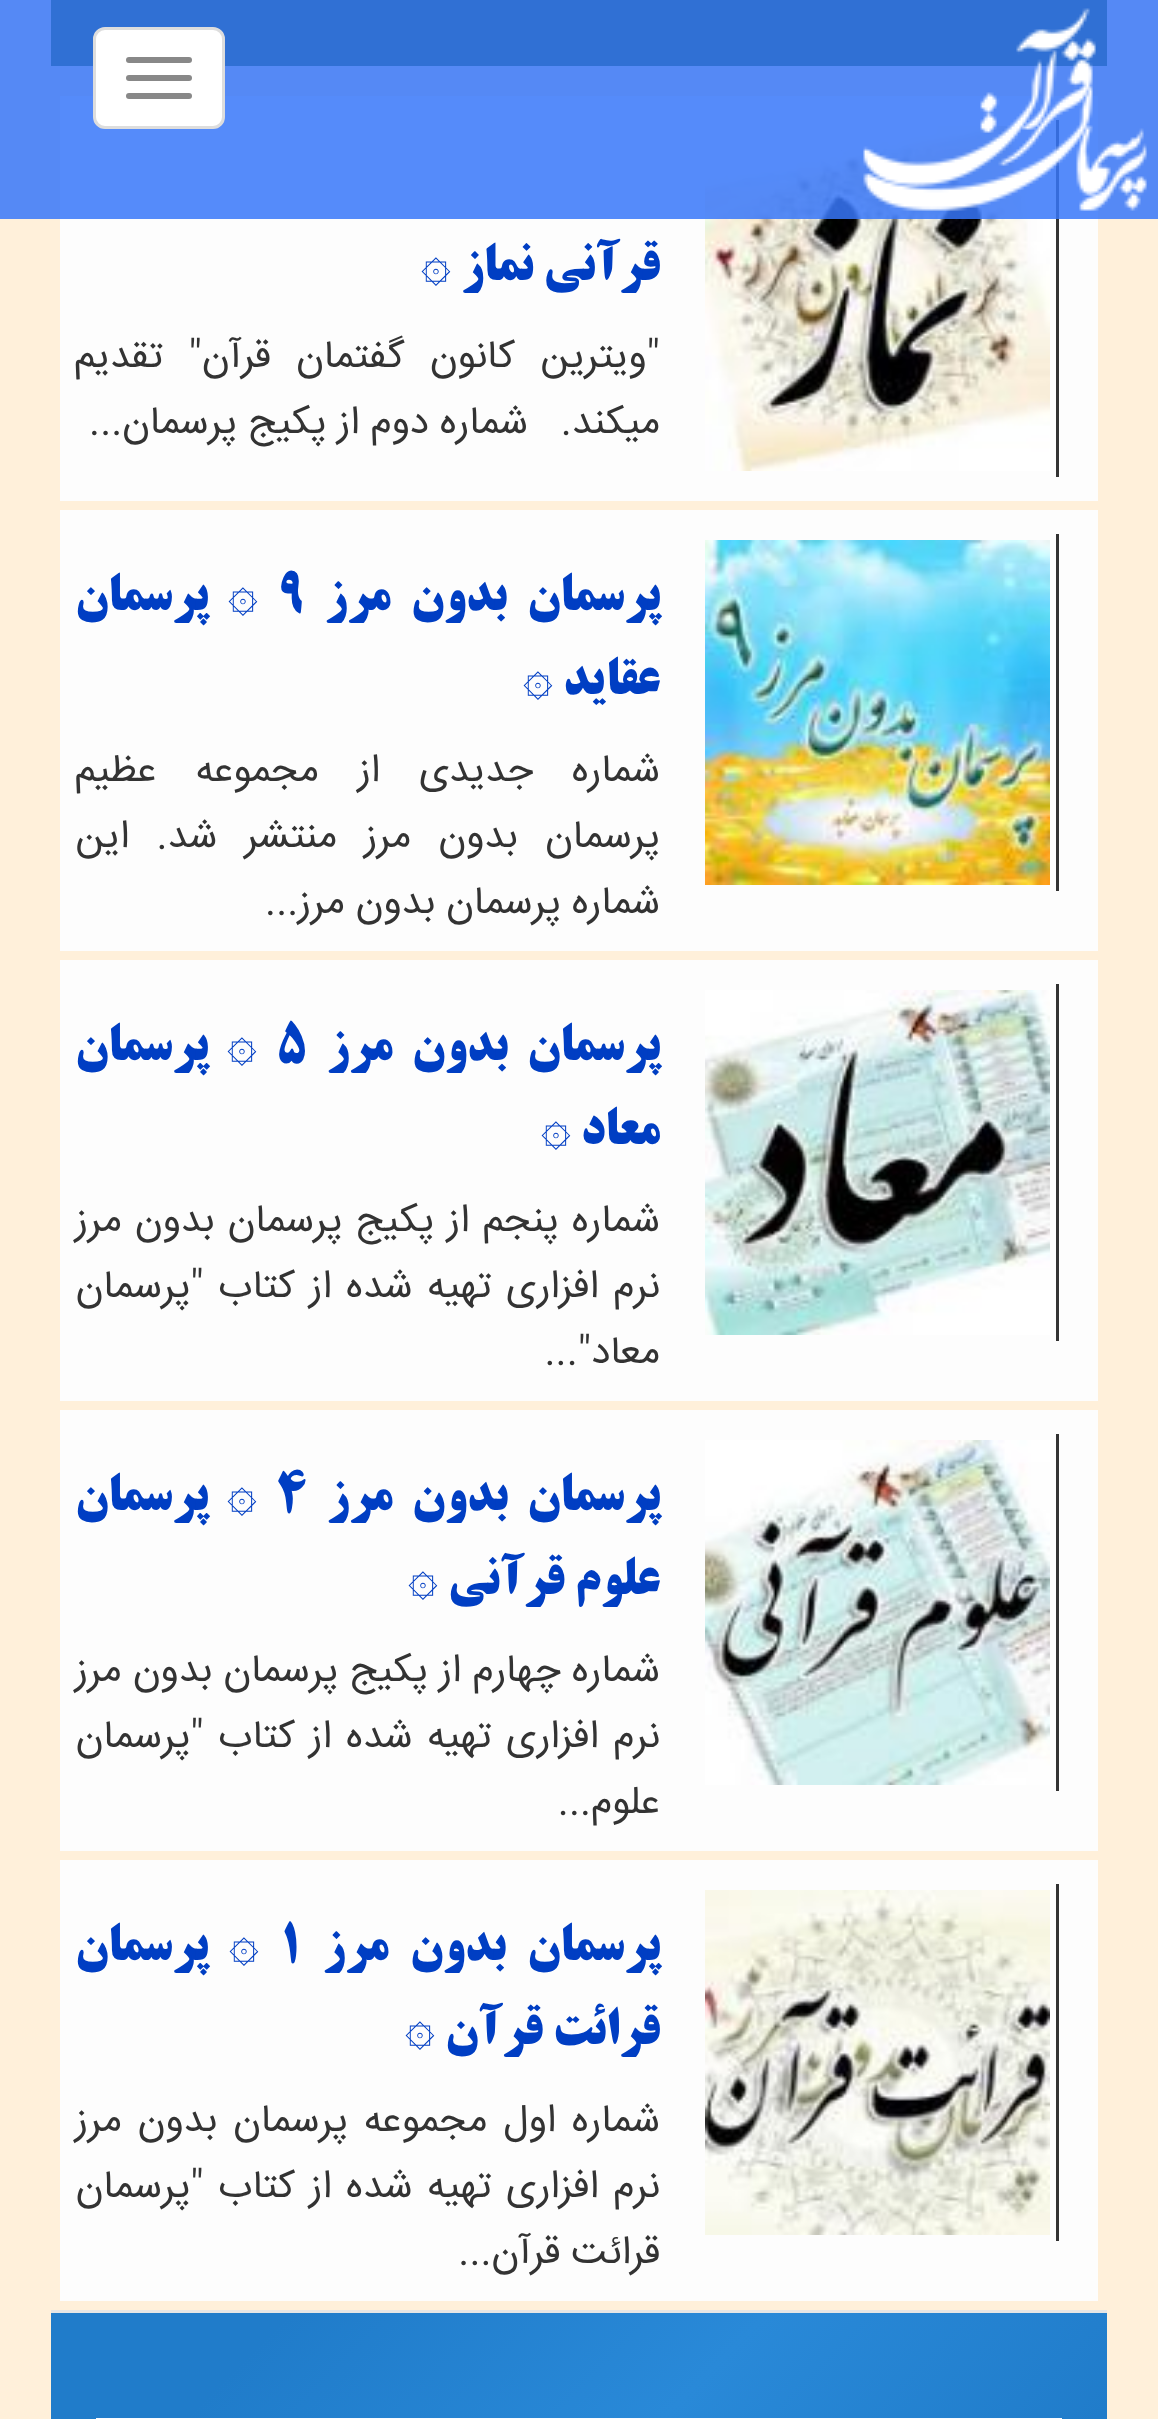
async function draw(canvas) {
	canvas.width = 1158;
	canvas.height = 2419;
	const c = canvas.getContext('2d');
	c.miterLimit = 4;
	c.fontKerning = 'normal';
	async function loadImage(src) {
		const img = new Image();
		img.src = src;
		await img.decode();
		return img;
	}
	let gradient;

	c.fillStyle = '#fff0da';
	c.fillRect(0, 0, 1158, 2419);
	for (const [x, y, w, h, color] of [
		[51, 0, 1056, 66, '#0b4c02'],
		[60, 96, 1038, 405, '#fdfdfd'],
		[1056, 120, 3, 357, '#333'],
	]) {
		c.fillStyle = color;
		c.fillRect(x, y, w, h);
	}
	c.drawImage(await loadImage('img2.png'), 705, 126, 345, 345);
	c.fillStyle = '#3777f9d9';
	c.fillRect(0, 0, 1158, 219);
	c.drawImage(await loadImage('img1.png'), 863, 8, 284, 203);
	c.fillStyle = '#fff';
	c.beginPath();
	c.roundRect(94.5, 28.5, 129, 99, 10.5);
	c.fill();
	c.strokeStyle = '#ddd';
	c.lineWidth = 3;
	c.stroke();
	c.fillStyle = '#888';
	c.beginPath();
	c.roundRect(126, 57, 66, 6, 3);
	c.fill();
	c.beginPath();
	c.roundRect(126, 75, 66, 6, 3);
	c.fill();
	c.beginPath();
	c.roundRect(126, 93, 66, 6, 3);
	c.fill();
	c.direction = 'rtl';
	c.font = 'bold 51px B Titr';
	c.fillStyle = '#003ec3';
	c.fillText('قرآنی نماز', 660, 280);
	c.font = '500 51px Cascadia Code';
	c.fillText('۞', 451, 280);
	c.wordSpacing = '14.5px';
	c.font = '39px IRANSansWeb';
	c.fillStyle = '#333';
	c.fillText('"ویترین کانون گفتمان قرآن" تقدیم', 660, 367);
	c.wordSpacing = '0px';
	c.fillText('میکند.', 660, 433);
	c.fillText('شماره دوم از پکیج پرسمان...', 528, 433);
	c.fillStyle = '#fdfdfd';
	c.fillRect(60, 510, 1038, 441);
	c.fillStyle = '#333';
	c.fillRect(1056, 534, 3, 357);
	c.drawImage(await loadImage('img3.png'), 705, 540, 345, 345);
	c.wordSpacing = '10px';
	c.font = 'bold 51px B Titr';
	c.fillStyle = '#003ec3';
	c.fillText('پرسمان بدون مرز', 660, 610);
	c.wordSpacing = '0px';
	c.direction = 'ltr';
	c.fillText('9', 279, 610);
	c.direction = 'rtl';
	c.font = '500 51px Cascadia Code';
	c.fillText('۞', 258, 610);
	c.font = 'bold 51px B Titr';
	c.fillText('پرسمان', 208, 610);
	c.fillText('عقاید', 660, 694);
	c.font = '500 51px Cascadia Code';
	c.fillText('۞', 553, 694);
	c.wordSpacing = '28px';
	c.font = '39px IRANSansWeb';
	c.fillStyle = '#333';
	c.fillText('شماره جدیدی از مجموعه عظیم', 660, 781);
	c.wordSpacing = '16.5px';
	c.fillText('پرسمان بدون مرز منتشر شد. این', 660, 847);
	c.wordSpacing = '0px';
	c.fillText('شماره پرسمان بدون مرز...', 660, 913);
	c.fillStyle = '#fdfdfd';
	c.fillRect(60, 960, 1038, 441);
	c.fillStyle = '#333';
	c.fillRect(1056, 984, 3, 357);
	c.drawImage(await loadImage('img4.png'), 705, 990, 345, 345);
	c.wordSpacing = '9px';
	c.font = 'bold 51px B Titr';
	c.fillStyle = '#003ec3';
	c.fillText('پرسمان بدون مرز', 660, 1060);
	c.wordSpacing = '0px';
	c.direction = 'ltr';
	c.fillText('5', 277, 1060);
	c.direction = 'rtl';
	c.font = '500 51px Cascadia Code';
	c.fillText('۞', 257, 1060);
	c.font = 'bold 51px B Titr';
	c.fillText('پرسمان', 208, 1060);
	c.fillText('معاد', 660, 1144);
	c.font = '500 51px Cascadia Code';
	c.fillText('۞', 571, 1144);
	c.wordSpacing = '2.25px';
	c.font = '39px IRANSansWeb';
	c.fillStyle = '#333';
	c.fillText('شماره پنجم از پکیج پرسمان بدون مرز', 660, 1231);
	c.wordSpacing = '3.5px';
	c.fillText('نرم افزاری تهیه شده از کتاب "پرسمان', 660, 1297);
	c.wordSpacing = '0px';
	c.fillText('معاد"...', 660, 1363);
	c.fillStyle = '#fdfdfd';
	c.fillRect(60, 1410, 1038, 441);
	c.fillStyle = '#333';
	c.fillRect(1056, 1434, 3, 357);
	c.drawImage(await loadImage('img5.png'), 705, 1440, 345, 345);
	c.wordSpacing = '9px';
	c.font = 'bold 51px B Titr';
	c.fillStyle = '#003ec3';
	c.fillText('پرسمان بدون مرز', 660, 1510);
	c.wordSpacing = '0px';
	c.direction = 'ltr';
	c.fillText('4', 276, 1510);
	c.direction = 'rtl';
	c.font = '500 51px Cascadia Code';
	c.fillText('۞', 257, 1510);
	c.font = 'bold 51px B Titr';
	c.fillText('پرسمان', 208, 1510);
	c.fillText('علوم قرآنی', 660, 1594);
	c.font = '500 51px Cascadia Code';
	c.fillText('۞', 438, 1594);
	c.wordSpacing = '0.25px';
	c.font = '39px IRANSansWeb';
	c.fillStyle = '#333';
	c.fillText('شماره چهارم از پکیج پرسمان بدون مرز', 660, 1681);
	c.wordSpacing = '3.5px';
	c.fillText('نرم افزاری تهیه شده از کتاب "پرسمان', 660, 1747);
	c.wordSpacing = '0px';
	c.fillText('علوم...', 660, 1813);
	c.fillStyle = '#fdfdfd';
	c.fillRect(60, 1860, 1038, 441);
	c.fillStyle = '#333';
	c.fillRect(1056, 1884, 3, 357);
	c.drawImage(await loadImage('img6.png'), 705, 1890, 345, 345);
	c.wordSpacing = '11px';
	c.font = 'bold 51px B Titr';
	c.fillStyle = '#003ec3';
	c.fillText('پرسمان بدون مرز', 660, 1960);
	c.wordSpacing = '0px';
	c.direction = 'ltr';
	c.fillText('1', 280, 1960);
	c.direction = 'rtl';
	c.font = '500 51px Cascadia Code';
	c.fillText('۞', 259, 1960);
	c.font = 'bold 51px B Titr';
	c.fillText('پرسمان', 208, 1960);
	c.fillText('قرائت قرآن', 660, 2044);
	c.font = '500 51px Cascadia Code';
	c.fillText('۞', 435, 2044);
	c.wordSpacing = '5px';
	c.font = '39px IRANSansWeb';
	c.fillStyle = '#333';
	c.fillText('شماره اول مجموعه پرسمان بدون مرز', 660, 2131);
	c.wordSpacing = '3.5px';
	c.fillText('نرم افزاری تهیه شده از کتاب "پرسمان', 660, 2197);
	c.wordSpacing = '0px';
	c.fillText('قرائت قرآن...', 660, 2263);
	gradient = c.createLinearGradient(227, 2137, 931, 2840);
	gradient.addColorStop(0, '#1e5799');
	gradient.addColorStop(0, '#207cca');
	gradient.addColorStop(0.17, '#207cca');
	gradient.addColorStop(0.51, '#2989d8');
	gradient.addColorStop(0.82, '#207cca');
	gradient.addColorStop(1, '#207cca');
	gradient.addColorStop(1, '#7db9e8');
	c.fillStyle = gradient;
	c.fillRect(51, 2313, 1056, 106);
	c.fillStyle = '#e5e5e5';
	c.fillRect(51, 2310, 1056, 3);
	c.fillStyle = '#fafaff';
	c.fillRect(96, 2418, 966, 1);
}

draw(document.querySelector('canvas'));
